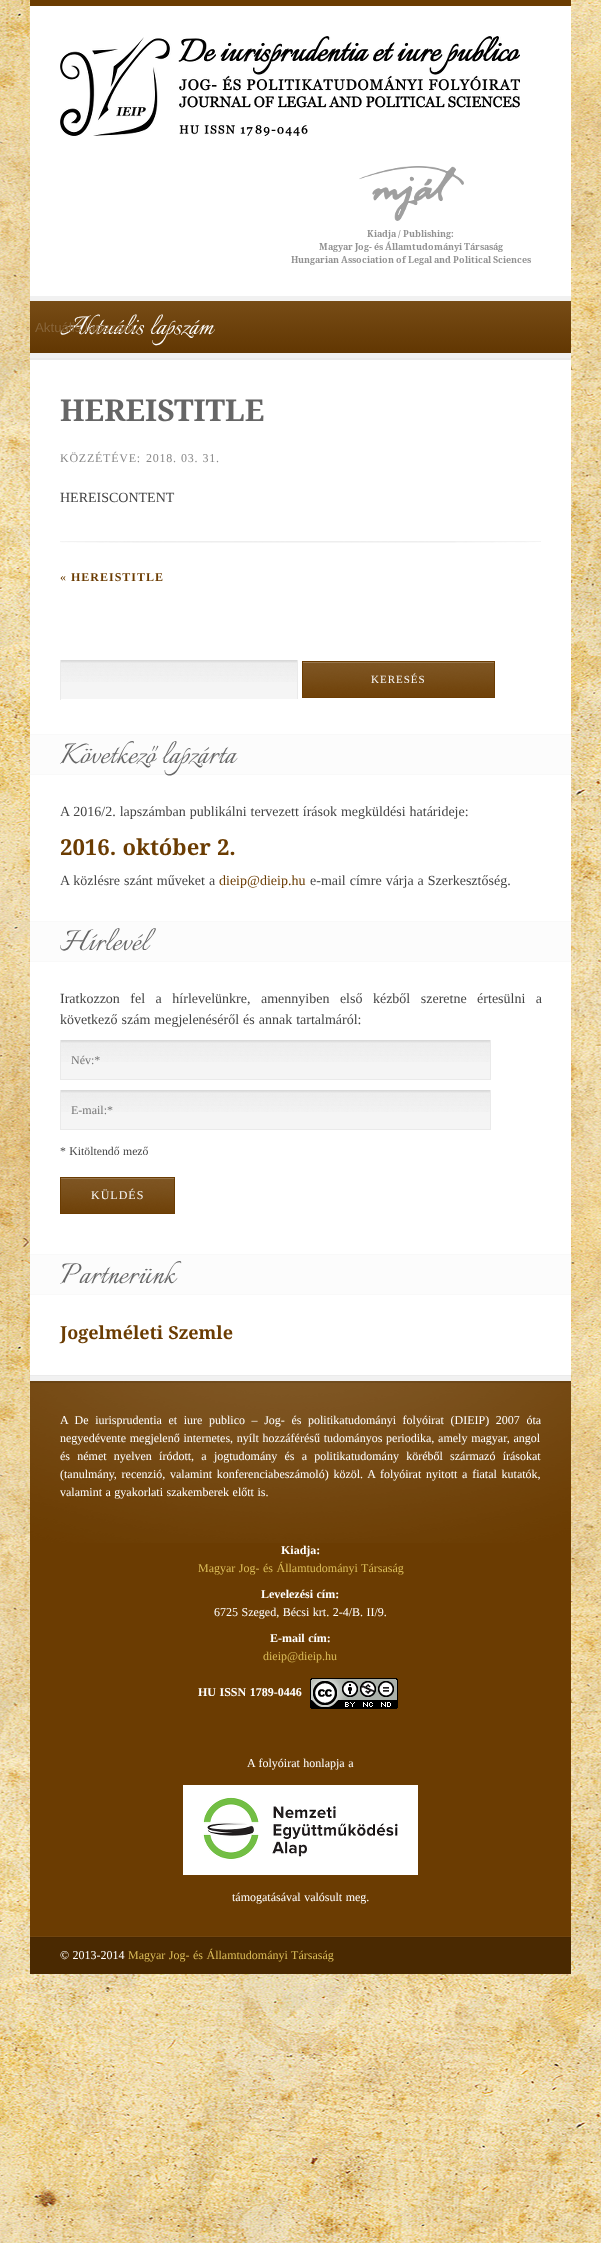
async function draw(canvas) {
	canvas.width = 601;
	canvas.height = 2243;
	const c = canvas.getContext('2d');
	c.miterLimit = 4;
	c.fontKerning = 'normal';
	async function loadImage(src) {
		const img = new Image();
		img.src = src;
		await img.decode();
		return img;
	}
	let gradient;

	c.fillStyle = '#fff';
	c.fillRect(0, 0, 601, 2243);
	c.drawImage(await loadImage('img1.png'), 0, 0, 601, 2243);
	c.fillRect(30, 6, 541, 1369);
	c.fillStyle = '#6b3c02';
	c.fillRect(30, 0, 541, 6);
	c.drawImage(await loadImage('img2.png'), 60, 36, 460, 100);
	c.drawImage(await loadImage('img3.png'), 291, 166, 240, 99);
	gradient = c.createLinearGradient(301, 301, 301, 353);
	gradient.addColorStop(0, '#774c16');
	gradient.addColorStop(1, '#623702');
	c.fillStyle = gradient;
	c.fillRect(30, 301, 541, 52);
	c.fillStyle = '#f1f1f1';
	c.fillRect(30, 296, 541, 5);
	c.fillRect(30, 353, 541, 5);
	c.wordSpacing = '0.5px';
	c.font = '32px Italianno';
	c.fillStyle = '#fff';
	c.fillText('Aktuális lapszám', 60, 334);
	c.wordSpacing = '0px';
	c.font = '13.25px Liberation Sans';
	c.fillStyle = '#88653a';
	c.fillText('Aktuális lapszám', 35, 332);
	c.fillStyle = '#ebebeb';
	c.fillRect(30, 358, 541, 2);
	c.fillRect(30, 1375, 541, 1);
	c.font = 'bold 30px Noto Serif';
	c.fillStyle = '#666';
	c.fillText('HEREISTITLE', 60, 421);
	c.letterSpacing = '0.75px';
	c.font = '12px Liberation Serif';
	c.fillStyle = '#888';
	c.fillText('KÖZZÉTÉVE:', 60, 462);
	c.wordSpacing = '0.5px';
	c.fillText('2018. 03. 31.', 146, 462);
	c.letterSpacing = '0px';
	c.wordSpacing = '0px';
	c.font = '14px Liberation Serif';
	c.fillStyle = '#444';
	c.fillText('HEREISCONTENT', 60, 502);
	c.drawImage(await loadImage('img4.png'), 60, 541, 481, 2);
	c.letterSpacing = '1px';
	c.font = '12px Liberation Serif';
	c.fillStyle = '#6b3c02';
	c.fillText('«', 60, 581);
	c.font = 'bold 12px Liberation Serif';
	c.fillText('HEREISTITLE', 71, 581);
	c.fillStyle = '#f5f5f5';
	c.fillRect(61, 682, 236, 17);
	c.drawImage(await loadImage('img5.png'), 61, 661, 236, 21);
	for (const [x, y, w, h, color] of [
		[60, 660, 238, 1, '#d9d9d9'],
		[297, 660, 1, 40, '#eaeaea'],
		[297, 699, 1, 1, '#fff'],
		[60, 660, 1, 40, '#eaeaea'],
		[303, 662, 191, 35, '#6b3c02'],
	]) {
		c.fillStyle = color;
		c.fillRect(x, y, w, h);
	}
	c.drawImage(await loadImage('img6.png'), 303, 662, 191, 35);
	c.strokeStyle = '#6b3c02';
	c.strokeRect(302.5, 661.5, 192, 36);
	c.font = '11px Liberation Serif';
	c.fillStyle = '#f8f8f8';
	c.fillText('KERESÉS', 371, 683);
	c.drawImage(await loadImage('img7.png'), 30, 734, 541, 41);
	c.letterSpacing = '0px';
	c.wordSpacing = '0.5px';
	c.font = '36px Italianno';
	c.fillStyle = '#666';
	c.fillText('Következő lapzárta', 60, 763);
	c.font = '14px Liberation Serif';
	c.fillStyle = '#444';
	c.fillText('A 2016/2. lapszámban publikálni tervezett írások megküldési határideje:', 60, 816);
	c.font = 'bold 22px Noto Serif';
	c.fillStyle = '#6b3c02';
	c.fillText('2016. október 2.', 60, 855);
	c.font = '14px Liberation Serif';
	c.fillStyle = '#444';
	c.fillText('A közlésre szánt műveket a', 60, 885);
	c.wordSpacing = '0px';
	c.fillStyle = '#6b3c02';
	c.fillText('dieip@dieip.hu', 219, 885);
	c.wordSpacing = '0.5px';
	c.fillStyle = '#444';
	c.fillText('e-mail címre várja a Szerkesztőség.', 310, 885);
	c.drawImage(await loadImage('img7.png'), 30, 921, 541, 41);
	c.wordSpacing = '0px';
	c.font = '36px Italianno';
	c.fillStyle = '#666';
	c.fillText('Hírlevél', 60, 950);
	c.wordSpacing = '7px';
	c.font = '14px Liberation Serif';
	c.fillStyle = '#444';
	c.fillText('Iratkozzon fel a hírlevelünkre, amennyiben első kézből szeretne értesülni a', 60, 1003);
	c.wordSpacing = '0.5px';
	c.fillText('következő szám megjelenéséről és annak tartalmáról:', 60, 1024);
	c.fillStyle = '#f5f5f5';
	c.fillRect(61, 1062, 429, 17);
	c.drawImage(await loadImage('img8.png'), 61, 1041, 429, 21);
	for (const [x, y, w, h, color] of [
		[60, 1040, 431, 1, '#d9d9d9'],
		[490, 1040, 1, 40, '#eaeaea'],
		[60, 1079, 431, 1, '#eaeaea'],
		[60, 1040, 1, 40, '#eaeaea'],
	]) {
		c.fillStyle = color;
		c.fillRect(x, y, w, h);
	}
	c.wordSpacing = '0px';
	c.font = '12px Liberation Serif';
	c.fillStyle = '#757575';
	c.fillText('Név:*', 71, 1064);
	c.fillStyle = '#f5f5f5';
	c.fillRect(61, 1112, 429, 17);
	c.drawImage(await loadImage('img8.png'), 61, 1091, 429, 21);
	for (const [x, y, w, h, color] of [
		[60, 1090, 431, 1, '#d9d9d9'],
		[490, 1090, 1, 40, '#eaeaea'],
		[60, 1129, 431, 1, '#eaeaea'],
		[60, 1090, 1, 40, '#eaeaea'],
	]) {
		c.fillStyle = color;
		c.fillRect(x, y, w, h);
	}
	c.fillStyle = '#757575';
	c.fillText('E-mail:*', 71, 1114);
	c.wordSpacing = '0.5px';
	c.font = '11.75px Liberation Serif';
	c.fillStyle = '#444';
	c.fillText('* Kitöltendő mező', 60, 1155);
	c.fillStyle = '#6b3c02';
	c.fillRect(61, 1178, 113, 35);
	c.drawImage(await loadImage('img9.png'), 61, 1178, 113, 35);
	c.strokeRect(60.5, 1177.5, 114, 36);
	c.letterSpacing = '1px';
	c.wordSpacing = '0px';
	c.font = '12px Liberation Serif';
	c.fillStyle = '#f8f8f8';
	c.fillText('KÜLDÉS', 91, 1199);
	c.drawImage(await loadImage('img7.png'), 30, 1254, 541, 41);
	c.letterSpacing = '0px';
	c.font = '36px Italianno';
	c.fillStyle = '#666';
	c.fillText('Partnerünk', 60, 1283);
	c.wordSpacing = '0.5px';
	c.font = 'bold 18px Noto Serif';
	c.fillStyle = '#6b3c02';
	c.fillText('Jogelméleti Szemle', 60, 1339);
	c.fillRect(30, 1381, 541, 593);
	c.drawImage(await loadImage('img10.png'), 30, 1381, 541, 162);
	c.fillStyle = '#0000001a';
	c.fillRect(30, 1381, 541, 2);
	c.fillStyle = '#f1f1f1';
	c.fillRect(30, 1376, 541, 5);
	c.wordSpacing = '3.6px';
	c.font = '12px Liberation Serif';
	c.fillStyle = '#fff';
	c.fillText('A De iurisprudentia et iure publico – Jog- és politikatudományi folyóirat (DIEIP) 2007 óta', 60, 1424);
	c.wordSpacing = '0.75px';
	c.fillText('negyedévente megjelenő internetes, nyílt hozzáférésű tudományos periodika, amely magyar, angol', 60, 1442);
	c.wordSpacing = '4.25px';
	c.fillText('és német nyelven íródott, a jogtudomány és a politikatudomány köréből származó írásokat', 60, 1460);
	c.wordSpacing = '1.75px';
	c.fillText('(tanulmány, recenzió, valamint konferenciabeszámoló) közöl. A folyóirat nyitott a fiatal kutatók,', 60, 1478);
	c.wordSpacing = '0.5px';
	c.fillText('valamint a gyakorlati szakemberek előtt is.', 60, 1496);
	c.wordSpacing = '0px';
	c.font = 'bold 12px Liberation Serif';
	c.fillText('Kiadja:', 281, 1554);
	c.wordSpacing = '0.5px';
	c.font = '12px Liberation Serif';
	c.fillStyle = '#dbbd59';
	c.fillText('Magyar Jog- és Államtudományi Társaság', 198, 1572);
	c.font = 'bold 12px Liberation Serif';
	c.fillStyle = '#fff';
	c.fillText('Levelezési cím:', 261, 1598);
	c.font = '12px Liberation Serif';
	c.fillText('6725 Szeged, Bécsi krt. 2-4/B. II/9.', 214, 1616);
	c.font = 'bold 12px Liberation Serif';
	c.fillText('E-mail cím:', 270, 1642);
	c.wordSpacing = '0px';
	c.font = '12px Liberation Serif';
	c.fillStyle = '#dbbd59';
	c.fillText('dieip@dieip.hu', 263, 1660);
	c.wordSpacing = '0.5px';
	c.font = 'bold 12px Liberation Serif';
	c.fillStyle = '#fff';
	c.fillText('HU ISSN 1789-0446', 198, 1696);
	c.drawImage(await loadImage('img11.png'), 310, 1678, 88, 31);
	c.font = '12px Liberation Serif';
	c.fillText('A folyóirat honlapja a', 247, 1767);
	c.drawImage(await loadImage('img12.png'), 183, 1785, 235, 90);
	c.fillText('támogatásával valósult meg.', 232, 1901);
	c.drawImage(await loadImage('img13.png'), 30, 1936, 541, 38);
	c.fillText('© 2013-2014', 60, 1959);
	c.fillStyle = '#dbbd59';
	c.fillText('Magyar Jog- és Államtudományi Társaság', 128, 1959);
}

draw(document.querySelector('canvas'));
